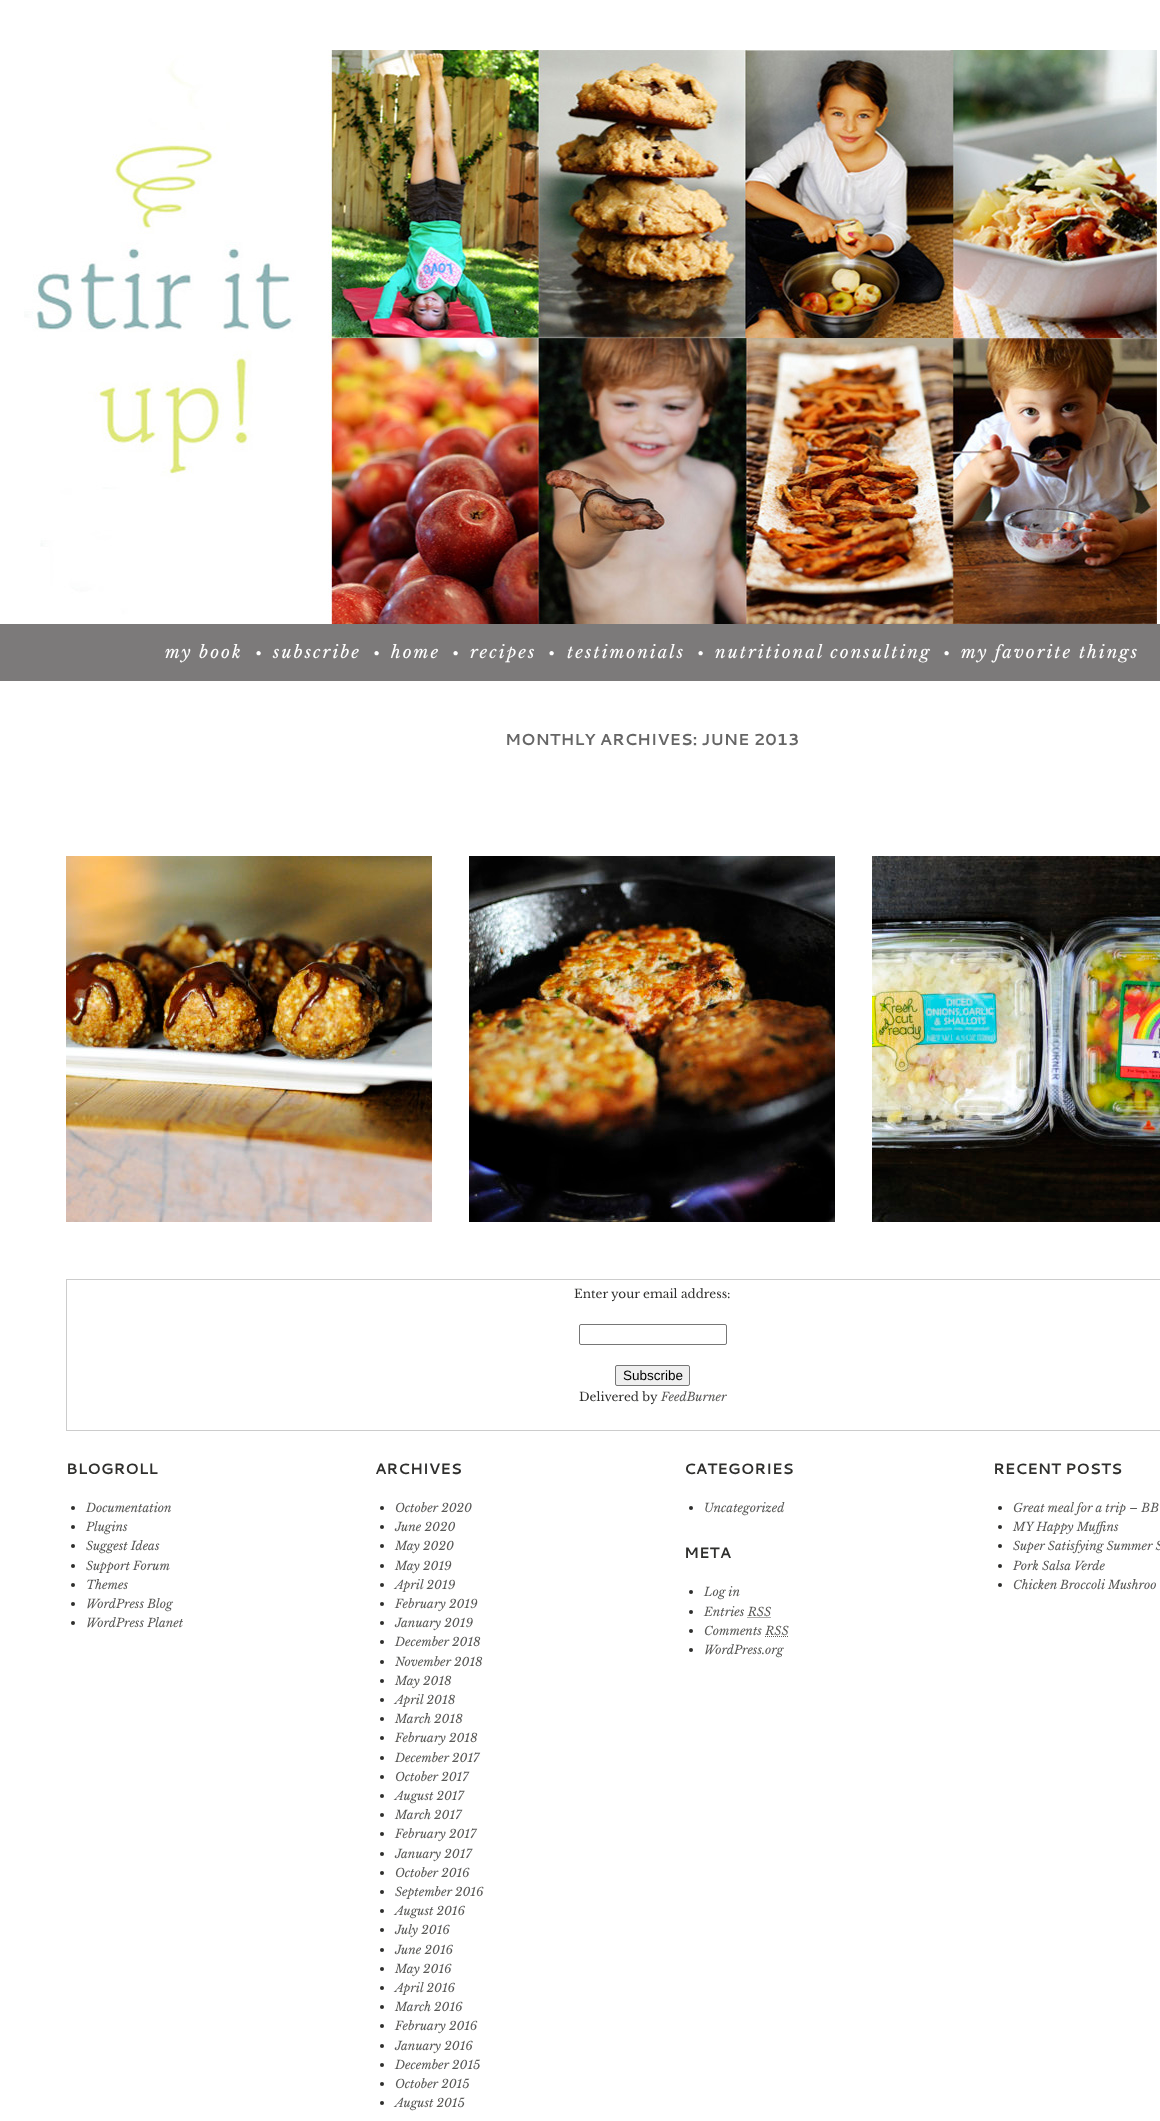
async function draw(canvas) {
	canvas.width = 1160;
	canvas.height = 2121;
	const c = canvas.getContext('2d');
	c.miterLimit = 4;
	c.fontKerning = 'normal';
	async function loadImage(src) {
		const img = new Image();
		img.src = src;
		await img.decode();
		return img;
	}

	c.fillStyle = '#fff';
	c.fillRect(0, 0, 1160, 2121);
	c.drawImage(await loadImage('img1.png'), 24, 50, 1133, 574);
	c.fillStyle = '#7c7a7a';
	c.fillRect(0, 624, 1160, 57);
	c.letterSpacing = '2px';
	c.font = 'italic 17px Libre Baskerville';
	c.fillStyle = '#fff';
	c.fillText('my book', 165, 658);
	c.drawImage(await loadImage('img2.png'), 256, 651, 5, 5);
	c.fillText('subscribe', 273, 658);
	c.drawImage(await loadImage('img2.png'), 374, 651, 5, 5);
	c.fillText('home', 391, 658);
	c.drawImage(await loadImage('img2.png'), 453, 651, 5, 5);
	c.fillText('recipes', 470, 658);
	c.drawImage(await loadImage('img2.png'), 549, 651, 5, 5);
	c.fillText('testimonials', 567, 658);
	c.drawImage(await loadImage('img2.png'), 698, 651, 5, 5);
	c.fillText('nutritional consulting', 715, 658);
	c.drawImage(await loadImage('img2.png'), 944, 651, 5, 5);
	c.fillText('my favorite things', 961, 658);
	c.letterSpacing = '0px';
	c.font = 'bold 16px Cantarell';
	c.fillStyle = '#666';
	c.fillText('MONTHLY ARCHIVES: JUNE 2013', 505, 745);
	c.drawImage(await loadImage('img3.png'), 66, 856, 366, 366);
	c.drawImage(await loadImage('img4.png'), 469, 856, 366, 366);
	c.drawImage(await loadImage('img5.png'), 872, 856, 288, 366);
	c.strokeStyle = '#ccc';
	c.strokeRect(66.5, 1279.5, 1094, 151);
	c.font = '12px Libre Baskerville';
	c.fillStyle = '#2f2f2d';
	c.fillText('Enter your email address:', 574, 1298);
	c.beginPath();
	c.roundRect(579.5, 1324.5, 147, 20, 1.5);
	c.strokeStyle = '#767676';
	c.stroke();
	c.fillStyle = '#efefef';
	c.beginPath();
	c.roundRect(615.5, 1365.5, 74, 20, 1.5);
	c.fill();
	c.stroke();
	c.font = '13.5px Liberation Sans';
	c.fillStyle = '#000';
	c.fillText('Subscribe', 623, 1380);
	c.font = '12px Libre Baskerville';
	c.fillStyle = '#2f2f2d';
	c.fillText('Delivered by', 579, 1401);
	c.font = 'italic 12px Libre Baskerville';
	c.fillStyle = '#595957';
	c.fillText('FeedBurner', 661, 1401);
	c.font = 'bold 15px Cantarell';
	c.fillStyle = '#2f2f2d';
	c.fillText('BLOGROLL', 66, 1474);
	c.beginPath();
	c.arc(73, 1508, 2, 0, 2 * Math.PI);
	c.fill();
	c.font = 'italic 12px Libre Baskerville';
	c.fillStyle = '#595957';
	c.fillText('Documentation', 86, 1512);
	c.fillStyle = '#2f2f2d';
	c.beginPath();
	c.arc(73, 1527, 2, 0, 2 * Math.PI);
	c.fill();
	c.fillStyle = '#595957';
	c.fillText('Plugins', 86, 1531);
	c.fillStyle = '#2f2f2d';
	c.beginPath();
	c.arc(73, 1546, 2, 0, 2 * Math.PI);
	c.fill();
	c.fillStyle = '#595957';
	c.fillText('Suggest Ideas', 86, 1550);
	c.fillStyle = '#2f2f2d';
	c.beginPath();
	c.arc(73, 1566, 2, 0, 2 * Math.PI);
	c.fill();
	c.fillStyle = '#595957';
	c.fillText('Support Forum', 86, 1570);
	c.fillStyle = '#2f2f2d';
	c.beginPath();
	c.arc(73, 1585, 2, 0, 2 * Math.PI);
	c.fill();
	c.fillStyle = '#595957';
	c.fillText('Themes', 86, 1589);
	c.fillStyle = '#2f2f2d';
	c.beginPath();
	c.arc(73, 1604, 2, 0, 2 * Math.PI);
	c.fill();
	c.fillStyle = '#595957';
	c.fillText('WordPress Blog', 86, 1608);
	c.fillStyle = '#2f2f2d';
	c.beginPath();
	c.arc(73, 1623, 2, 0, 2 * Math.PI);
	c.fill();
	c.fillStyle = '#595957';
	c.fillText('WordPress Planet', 86, 1627);
	c.font = 'bold 15px Cantarell';
	c.fillStyle = '#2f2f2d';
	c.fillText('ARCHIVES', 375, 1474);
	c.beginPath();
	c.arc(382, 1508, 2, 0, 2 * Math.PI);
	c.fill();
	c.font = 'italic 12px Libre Baskerville';
	c.fillStyle = '#595957';
	c.fillText('October 2020', 395, 1512);
	c.fillStyle = '#2f2f2d';
	c.beginPath();
	c.arc(382, 1527, 2, 0, 2 * Math.PI);
	c.fill();
	c.fillStyle = '#595957';
	c.fillText('June 2020', 395, 1531);
	c.fillStyle = '#2f2f2d';
	c.beginPath();
	c.arc(382, 1546, 2, 0, 2 * Math.PI);
	c.fill();
	c.fillStyle = '#595957';
	c.fillText('May 2020', 395, 1550);
	c.fillStyle = '#2f2f2d';
	c.beginPath();
	c.arc(382, 1566, 2, 0, 2 * Math.PI);
	c.fill();
	c.fillStyle = '#595957';
	c.fillText('May 2019', 395, 1570);
	c.fillStyle = '#2f2f2d';
	c.beginPath();
	c.arc(382, 1585, 2, 0, 2 * Math.PI);
	c.fill();
	c.fillStyle = '#595957';
	c.fillText('April 2019', 395, 1589);
	c.fillStyle = '#2f2f2d';
	c.beginPath();
	c.arc(382, 1604, 2, 0, 2 * Math.PI);
	c.fill();
	c.fillStyle = '#595957';
	c.fillText('February 2019', 395, 1608);
	c.fillStyle = '#2f2f2d';
	c.beginPath();
	c.arc(382, 1623, 2, 0, 2 * Math.PI);
	c.fill();
	c.fillStyle = '#595957';
	c.fillText('January 2019', 395, 1627);
	c.fillStyle = '#2f2f2d';
	c.beginPath();
	c.arc(382, 1642, 2, 0, 2 * Math.PI);
	c.fill();
	c.fillStyle = '#595957';
	c.fillText('December 2018', 395, 1646);
	c.fillStyle = '#2f2f2d';
	c.beginPath();
	c.arc(382, 1662, 2, 0, 2 * Math.PI);
	c.fill();
	c.fillStyle = '#595957';
	c.fillText('November 2018', 395, 1666);
	c.fillStyle = '#2f2f2d';
	c.beginPath();
	c.arc(382, 1681, 2, 0, 2 * Math.PI);
	c.fill();
	c.fillStyle = '#595957';
	c.fillText('May 2018', 395, 1685);
	c.fillStyle = '#2f2f2d';
	c.beginPath();
	c.arc(382, 1700, 2, 0, 2 * Math.PI);
	c.fill();
	c.fillStyle = '#595957';
	c.fillText('April 2018', 395, 1704);
	c.fillStyle = '#2f2f2d';
	c.beginPath();
	c.arc(382, 1719, 2, 0, 2 * Math.PI);
	c.fill();
	c.fillStyle = '#595957';
	c.fillText('March 2018', 395, 1723);
	c.fillStyle = '#2f2f2d';
	c.beginPath();
	c.arc(382, 1738, 2, 0, 2 * Math.PI);
	c.fill();
	c.fillStyle = '#595957';
	c.fillText('February 2018', 395, 1742);
	c.fillStyle = '#2f2f2d';
	c.beginPath();
	c.arc(382, 1758, 2, 0, 2 * Math.PI);
	c.fill();
	c.fillStyle = '#595957';
	c.fillText('December 2017', 395, 1762);
	c.fillStyle = '#2f2f2d';
	c.beginPath();
	c.arc(382, 1777, 2, 0, 2 * Math.PI);
	c.fill();
	c.fillStyle = '#595957';
	c.fillText('October 2017', 395, 1781);
	c.fillStyle = '#2f2f2d';
	c.beginPath();
	c.arc(382, 1796, 2, 0, 2 * Math.PI);
	c.fill();
	c.fillStyle = '#595957';
	c.fillText('August 2017', 395, 1800);
	c.fillStyle = '#2f2f2d';
	c.beginPath();
	c.arc(382, 1815, 2, 0, 2 * Math.PI);
	c.fill();
	c.fillStyle = '#595957';
	c.fillText('March 2017', 395, 1819);
	c.fillStyle = '#2f2f2d';
	c.beginPath();
	c.arc(382, 1834, 2, 0, 2 * Math.PI);
	c.fill();
	c.fillStyle = '#595957';
	c.fillText('February 2017', 395, 1838);
	c.fillStyle = '#2f2f2d';
	c.beginPath();
	c.arc(382, 1854, 2, 0, 2 * Math.PI);
	c.fill();
	c.fillStyle = '#595957';
	c.fillText('January 2017', 395, 1858);
	c.fillStyle = '#2f2f2d';
	c.beginPath();
	c.arc(382, 1873, 2, 0, 2 * Math.PI);
	c.fill();
	c.fillStyle = '#595957';
	c.fillText('October 2016', 395, 1877);
	c.fillStyle = '#2f2f2d';
	c.beginPath();
	c.arc(382, 1892, 2, 0, 2 * Math.PI);
	c.fill();
	c.fillStyle = '#595957';
	c.fillText('September 2016', 395, 1896);
	c.fillStyle = '#2f2f2d';
	c.beginPath();
	c.arc(382, 1911, 2, 0, 2 * Math.PI);
	c.fill();
	c.fillStyle = '#595957';
	c.fillText('August 2016', 395, 1915);
	c.fillStyle = '#2f2f2d';
	c.beginPath();
	c.arc(382, 1930, 2, 0, 2 * Math.PI);
	c.fill();
	c.fillStyle = '#595957';
	c.fillText('July 2016', 395, 1934);
	c.fillStyle = '#2f2f2d';
	c.beginPath();
	c.arc(382, 1950, 2, 0, 2 * Math.PI);
	c.fill();
	c.fillStyle = '#595957';
	c.fillText('June 2016', 395, 1954);
	c.fillStyle = '#2f2f2d';
	c.beginPath();
	c.arc(382, 1969, 2, 0, 2 * Math.PI);
	c.fill();
	c.fillStyle = '#595957';
	c.fillText('May 2016', 395, 1973);
	c.fillStyle = '#2f2f2d';
	c.beginPath();
	c.arc(382, 1988, 2, 0, 2 * Math.PI);
	c.fill();
	c.fillStyle = '#595957';
	c.fillText('April 2016', 395, 1992);
	c.fillStyle = '#2f2f2d';
	c.beginPath();
	c.arc(382, 2007, 2, 0, 2 * Math.PI);
	c.fill();
	c.fillStyle = '#595957';
	c.fillText('March 2016', 395, 2011);
	c.fillStyle = '#2f2f2d';
	c.beginPath();
	c.arc(382, 2026, 2, 0, 2 * Math.PI);
	c.fill();
	c.fillStyle = '#595957';
	c.fillText('February 2016', 395, 2030);
	c.fillStyle = '#2f2f2d';
	c.beginPath();
	c.arc(382, 2046, 2, 0, 2 * Math.PI);
	c.fill();
	c.fillStyle = '#595957';
	c.fillText('January 2016', 395, 2050);
	c.fillStyle = '#2f2f2d';
	c.beginPath();
	c.arc(382, 2065, 2, 0, 2 * Math.PI);
	c.fill();
	c.fillStyle = '#595957';
	c.fillText('December 2015', 395, 2069);
	c.fillStyle = '#2f2f2d';
	c.beginPath();
	c.arc(382, 2084, 2, 0, 2 * Math.PI);
	c.fill();
	c.fillStyle = '#595957';
	c.fillText('October 2015', 395, 2088);
	c.fillStyle = '#2f2f2d';
	c.beginPath();
	c.arc(382, 2103, 2, 0, 2 * Math.PI);
	c.fill();
	c.fillStyle = '#595957';
	c.fillText('August 2015', 395, 2107);
	c.font = 'bold 15px Cantarell';
	c.fillStyle = '#2f2f2d';
	c.fillText('CATEGORIES', 684, 1474);
	c.beginPath();
	c.arc(691, 1508, 2, 0, 2 * Math.PI);
	c.fill();
	c.font = 'italic 12px Libre Baskerville';
	c.fillStyle = '#595957';
	c.fillText('Uncategorized', 704, 1512);
	c.font = 'bold 15px Cantarell';
	c.fillStyle = '#2f2f2d';
	c.fillText('META', 684, 1558);
	c.beginPath();
	c.arc(691, 1592, 2, 0, 2 * Math.PI);
	c.fill();
	c.font = 'italic 12px Libre Baskerville';
	c.fillStyle = '#595957';
	c.fillText('Log in', 704, 1596);
	c.fillStyle = '#2f2f2d';
	c.beginPath();
	c.arc(691, 1612, 2, 0, 2 * Math.PI);
	c.fill();
	c.fillStyle = '#595957';
	c.fillText('Entries RSS', 704, 1616);
	c.beginPath();
	c.moveTo(747.5, 1617.5);
	c.lineTo(771, 1617.5);
	c.strokeStyle = '#595957';
	c.setLineDash([1, 1]);
	c.stroke();
	c.fillStyle = '#2f2f2d';
	c.beginPath();
	c.arc(691, 1631, 2, 0, 2 * Math.PI);
	c.fill();
	c.fillStyle = '#595957';
	c.fillText('Comments RSS', 704, 1635);
	c.beginPath();
	c.moveTo(765, 1636.5);
	c.lineTo(788.5, 1636.5);
	c.stroke();
	c.fillStyle = '#2f2f2d';
	c.beginPath();
	c.arc(691, 1650, 2, 0, 2 * Math.PI);
	c.fill();
	c.fillStyle = '#595957';
	c.fillText('WordPress.org', 704, 1654);
	c.font = 'bold 15px Cantarell';
	c.fillStyle = '#2f2f2d';
	c.fillText('RECENT POSTS', 993, 1474);
	c.beginPath();
	c.arc(1000, 1508, 2, 0, 2 * Math.PI);
	c.fill();
	c.font = 'italic 12px Libre Baskerville';
	c.fillStyle = '#595957';
	c.fillText('Great meal for a trip – BB', 1013, 1512);
	c.fillStyle = '#2f2f2d';
	c.beginPath();
	c.arc(1000, 1527, 2, 0, 2 * Math.PI);
	c.fill();
	c.fillStyle = '#595957';
	c.fillText('MY Happy Muffins', 1013, 1531);
	c.fillStyle = '#2f2f2d';
	c.beginPath();
	c.arc(1000, 1546, 2, 0, 2 * Math.PI);
	c.fill();
	c.fillStyle = '#595957';
	c.fillText('Super Satisfying Summer S', 1013, 1550);
	c.fillStyle = '#2f2f2d';
	c.beginPath();
	c.arc(1000, 1566, 2, 0, 2 * Math.PI);
	c.fill();
	c.fillStyle = '#595957';
	c.fillText('Pork Salsa Verde', 1013, 1570);
	c.fillStyle = '#2f2f2d';
	c.beginPath();
	c.arc(1000, 1585, 2, 0, 2 * Math.PI);
	c.fill();
	c.fillStyle = '#595957';
	c.fillText('Chicken Broccoli Mushroo', 1013, 1589);
}

draw(document.querySelector('canvas'));
